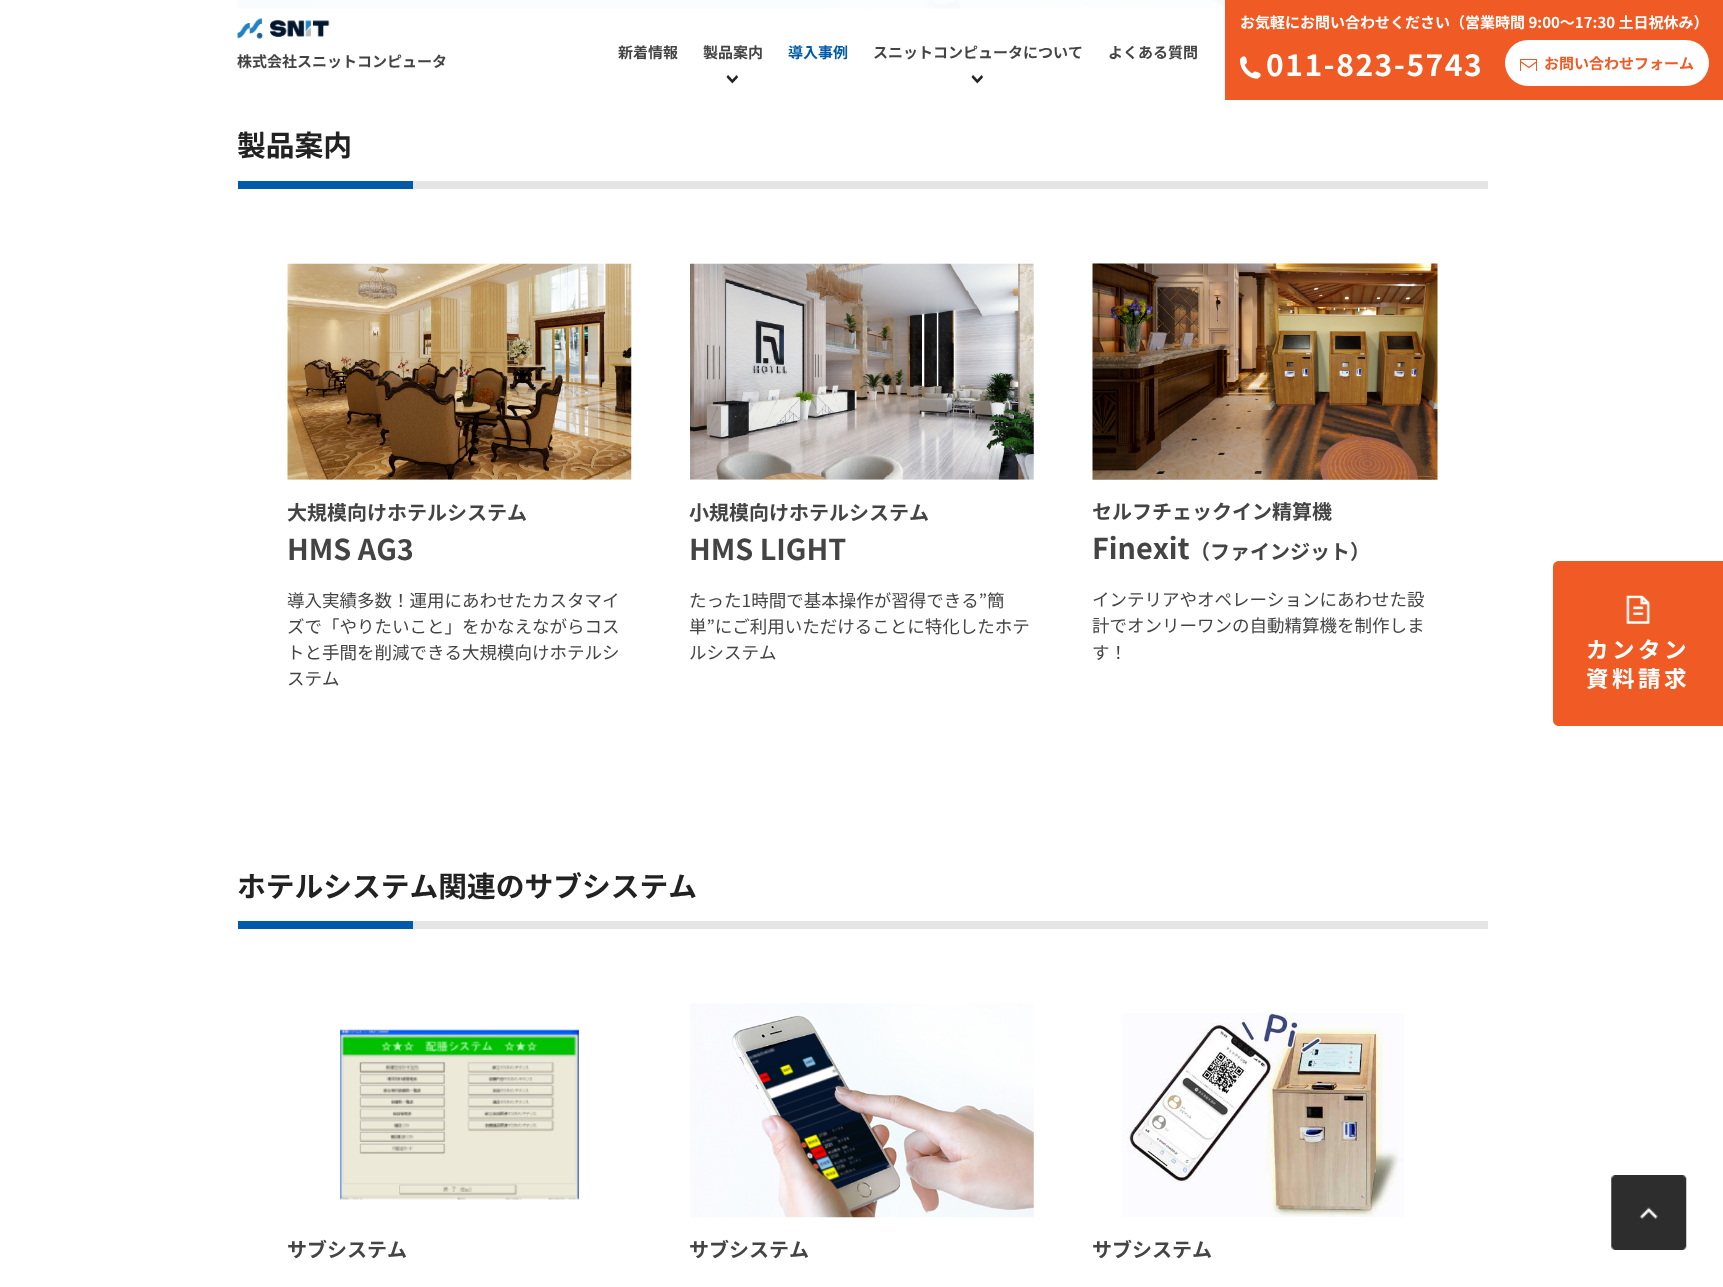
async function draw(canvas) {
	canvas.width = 1723;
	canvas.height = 1287;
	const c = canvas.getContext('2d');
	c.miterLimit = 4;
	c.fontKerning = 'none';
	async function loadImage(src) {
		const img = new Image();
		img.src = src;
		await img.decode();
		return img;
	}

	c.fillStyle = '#fff';
	c.fillRect(0, 0, 1723, 1287);
	c.drawImage(await loadImage('img1.png'), 237, 18, 93, 21);
	c.font = 'bold 15px Noto Sans JP';
	c.fillStyle = '#444';
	c.fillText('株式会社スニットコンピュータ', 237, 67);
	c.fillText('新着情報', 618, 58);
	c.drawImage(await loadImage('img2.png'), 726, 74, 12, 10);
	c.fillText('製品案内', 703, 58);
	c.fillStyle = '#005aa9';
	c.fillText('導入事例', 788, 58);
	c.drawImage(await loadImage('img2.png'), 971, 74, 12, 10);
	c.fillStyle = '#444';
	c.fillText('スニットコンピュータについて', 873, 58);
	c.fillText('よくある質問', 1108, 58);
	c.fillStyle = '#f05a24';
	c.fillRect(1225, 0, 498, 100);
	c.fillStyle = '#fff';
	c.fillText('お気軽にお問い合わせください（営業時間 9:00～17:30 土日祝休み）', 1240, 28);
	c.drawImage(await loadImage('img3.png'), 1240, 56, 21, 23);
	c.letterSpacing = '1.5px';
	c.font = 'bold 30px Noto Sans JP';
	c.fillText('011-823-5743', 1266, 76);
	c.beginPath();
	c.roundRect(1505, 40, 204, 46, 23);
	c.fill();
	c.save();
	c.beginPath();
	c.rect(1520, 59, 18, 12);
	c.clip();
	c.strokeStyle = '#f05a24';
	c.strokeRect(1520.5, 59.5, 16, 12);
	c.restore();
	c.beginPath();
	c.moveTo(1537, 61.5);
	c.lineTo(1529, 67.5);
	c.lineTo(1520.5, 61.5);
	c.strokeStyle = '#f05a24';
	c.lineWidth = 1.2;
	c.stroke();
	c.letterSpacing = '0px';
	c.font = 'bold 15px Noto Sans JP';
	c.fillStyle = '#f05a24';
	c.fillText('お問い合わせフォーム', 1544, 69);
	c.drawImage(await loadImage('img4.png'), 237, 0, 988, 9);
	c.fillStyle = '#e5e5e5';
	c.fillRect(413, 181, 1075, 8);
	c.font = 'bold 28.75px Noto Sans JP';
	c.fillStyle = '#222';
	c.fillText('製品案内', 237, 156);
	c.fillStyle = '#005aa9';
	c.fillRect(238, 181, 175, 8);
	c.drawImage(await loadImage('img5.png'), 287, 263, 345, 217);
	c.font = 'bold 20px Noto Sans JP';
	c.fillStyle = '#444';
	c.fillText('大規模向けホテルシステム', 287, 520);
	c.font = 'bold 28.75px Noto Sans JP';
	c.fillText('HMS AG3', 287, 560);
	c.font = '17.5px Noto Sans JP';
	for (const [text, x, y] of [
		['導入実績多数！運用にあわせたカスタマイ', 287, 607],
		['ズで「やりたいこと」をかなえながらコス', 287, 633],
		['トと手間を削減できる大規模向けホテルシ', 287, 659],
		['ステム', 287, 685],
	]) {
		c.fillText(text, x, y);
	}
	c.drawImage(await loadImage('img6.png'), 690, 263, 344, 217);
	c.font = 'bold 20px Noto Sans JP';
	c.fillText('小規模向けホテルシステム', 689, 520);
	c.font = 'bold 28.75px Noto Sans JP';
	c.fillText('HMS LIGHT', 689, 560);
	c.font = '17.5px Noto Sans JP';
	for (const [text, x, y] of [
		['たった1時間で基本操作が習得できる”簡', 689, 607],
		['単”にご利用いただけることに特化したホテ', 689, 633],
		['ルシステム', 689, 659],
	]) {
		c.fillText(text, x, y);
	}
	c.drawImage(await loadImage('img7.png'), 1092, 263, 346, 217);
	c.font = 'bold 20px Noto Sans JP';
	c.fillText('セルフチェックイン精算機', 1092, 519);
	c.font = 'bold 28.75px Noto Sans JP';
	c.fillText('Finexit', 1092, 559);
	c.font = 'bold 20px Noto Sans JP';
	c.fillText('（ファインジット）', 1190, 559);
	c.font = '17.5px Noto Sans JP';
	for (const [text, x, y] of [
		['インテリアやオペレーションにあわせた設', 1092, 606],
		['計でオンリーワンの自動精算機を制作しま', 1092, 632],
		['す！', 1092, 659],
	]) {
		c.fillText(text, x, y);
	}
	c.fillStyle = '#e5e5e5';
	c.fillRect(413, 921, 1075, 8);
	c.font = 'bold 28.75px Noto Sans JP';
	c.fillStyle = '#222';
	c.fillText('ホテルシステム関連のサブシステム', 237, 897);
	c.fillStyle = '#005aa9';
	c.fillRect(238, 921, 175, 8);
	c.drawImage(await loadImage('img8.png'), 340, 1029, 239, 171);
	c.font = 'bold 20px Noto Sans JP';
	c.fillStyle = '#444';
	c.fillText('サブシステム', 287, 1257);
	c.drawImage(await loadImage('img9.png'), 690, 1003, 344, 215);
	c.fillText('サブシステム', 689, 1257);
	c.drawImage(await loadImage('img10.png'), 1122, 1013, 282, 204);
	c.fillText('サブシステム', 1092, 1257);
	c.fillStyle = '#f05a24';
	c.beginPath();
	c.moveTo(1559, 561);
	c.lineTo(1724, 561);
	c.lineTo(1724, 726);
	c.lineTo(1559, 726);
	c.bezierCurveTo(1555.5, 726, 1553, 723.5, 1553, 720);
	c.lineTo(1553, 567);
	c.bezierCurveTo(1553, 563.5, 1555.5, 561, 1559, 561);
	c.closePath();
	c.fill();
	c.drawImage(await loadImage('img11.png'), 1626, 595, 25, 29);
	c.letterSpacing = '3.5px';
	c.font = 'bold 22.5px Noto Sans JP';
	c.fillStyle = '#fff';
	c.fillText('カンタン', 1586, 658);
	c.fillText('資料請求', 1586, 687);
	c.drawImage(await loadImage('img12.png'), 1611, 1175, 76, 75);
}

draw(document.querySelector('canvas'));
